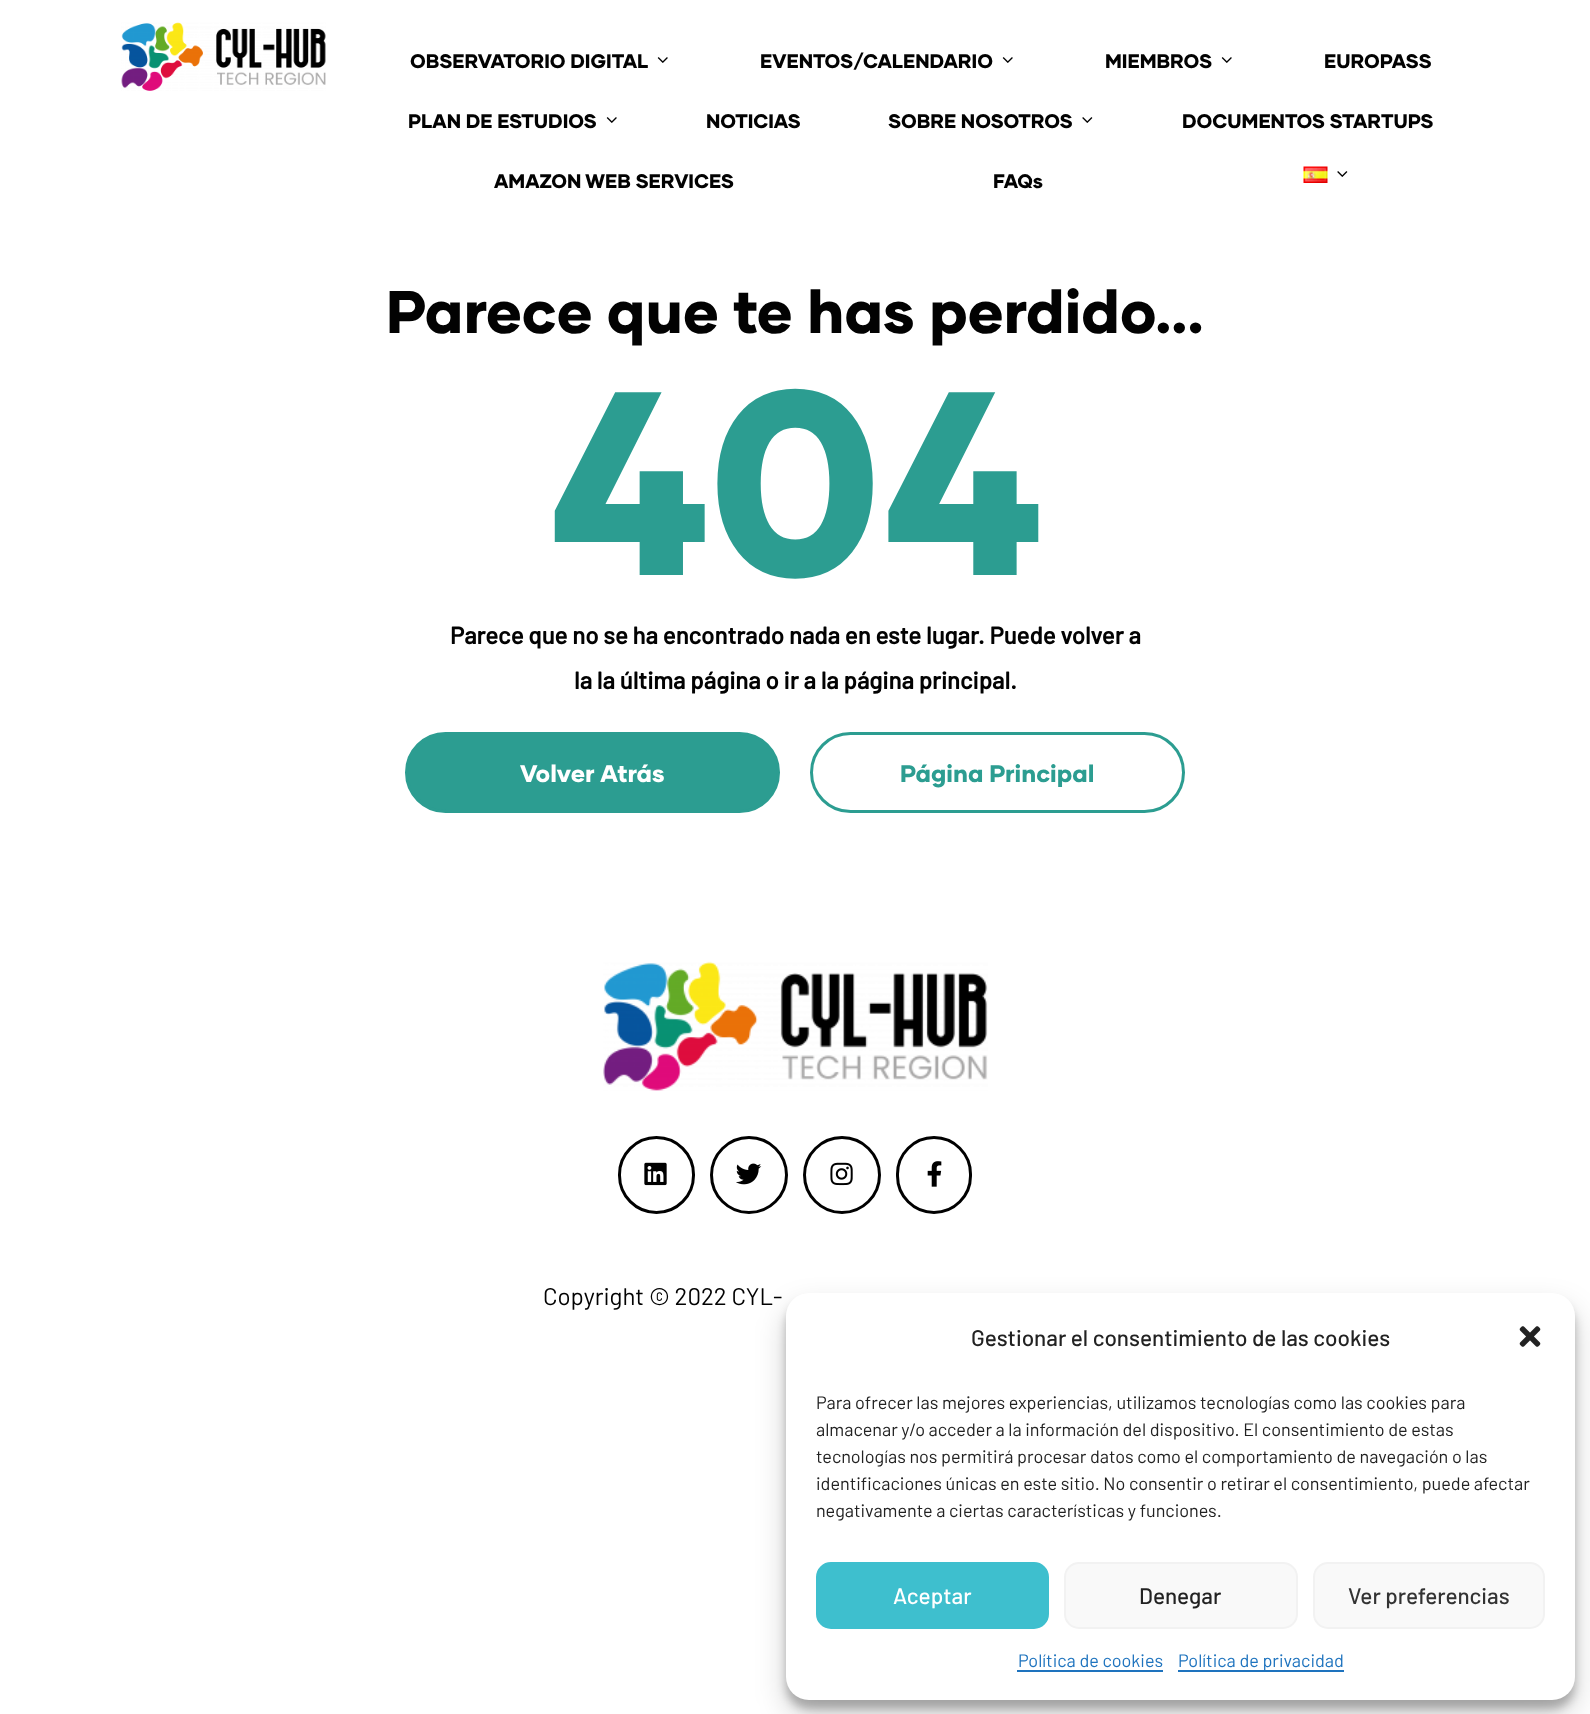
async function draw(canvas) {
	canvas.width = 1590;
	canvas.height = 1714;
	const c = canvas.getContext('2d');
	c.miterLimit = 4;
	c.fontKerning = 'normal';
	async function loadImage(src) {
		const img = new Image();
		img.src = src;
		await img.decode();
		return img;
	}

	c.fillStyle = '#fff';
	c.fillRect(0, 0, 1590, 1714);
	c.drawImage(await loadImage('img1.png'), 121, 22, 205, 69);
	c.font = '900 19.5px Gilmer';
	c.fillStyle = '#020202';
	c.fillText('OBSERVATORIO DIGITAL', 410, 68);
	c.drawImage(await loadImage('img2.png'), 657, 57, 11, 6);
	c.fillText('EVENTOS/CALENDARIO', 760, 68);
	c.drawImage(await loadImage('img2.png'), 1002, 57, 11, 6);
	c.fillText('MIEMBROS', 1105, 68);
	c.drawImage(await loadImage('img2.png'), 1221, 57, 11, 6);
	c.fillText('EUROPASS', 1324, 68);
	c.fillText('PLAN DE ESTUDIOS', 408, 128);
	c.drawImage(await loadImage('img2.png'), 606, 117, 11, 6);
	c.fillText('NOTICIAS', 706, 128);
	c.fillText('SOBRE NOSOTROS', 888, 128);
	c.drawImage(await loadImage('img3.png'), 1082, 117, 11, 6);
	for (const [text, x, y] of [
		['DOCUMENTOS STARTUPS', 1182, 128],
		['AMAZON WEB SERVICES', 494, 188],
		['FAQs', 993, 188],
	]) {
		c.fillText(text, x, y);
	}
	c.drawImage(await loadImage('img4.png'), 1303, 166, 25, 17);
	c.drawImage(await loadImage('img3.png'), 1337, 171, 11, 6);
	c.font = '900 60px Gilmer';
	c.fillText('Parece que te has perdido...', 386, 333);
	c.font = '900 261px Gilmer';
	c.fillStyle = '#2c9d91';
	c.fillText('404', 547, 575);
	c.font = 'bold 24px Barlow';
	c.fillStyle = '#020202';
	c.fillText('Parece que no se ha encontrado nada en este lugar. Puede volver a', 450, 644);
	c.fillText('la la última página o ir a la página principal.', 574, 689);
	c.fillStyle = '#2c9d91';
	c.beginPath();
	c.roundRect(406.5, 733.5, 372, 78, 39);
	c.fill();
	c.strokeStyle = '#2c9d91';
	c.lineWidth = 3;
	c.stroke();
	c.font = '900 24px Gilmer';
	c.fillStyle = '#fff';
	c.fillText('Volver Atrás', 520, 782);
	c.beginPath();
	c.roundRect(811.5, 733.5, 372, 78, 39);
	c.stroke();
	c.fillStyle = '#2c9d91';
	c.fillText('Página Principal', 900, 782);
	c.drawImage(await loadImage('img5.png'), 603, 961, 385, 130);
	c.beginPath();
	c.roundRect(619.5, 1137.5, 74, 75, 37);
	c.strokeStyle = '#000';
	c.stroke();
	c.drawImage(await loadImage('img6.png'), 644, 1162, 23, 24);
	c.beginPath();
	c.arc(749, 1175, 37.5, 0, 2 * Math.PI);
	c.stroke();
	c.drawImage(await loadImage('img7.png'), 736, 1163, 26, 22);
	c.beginPath();
	c.arc(842, 1175, 37.5, 0, 2 * Math.PI);
	c.stroke();
	c.drawImage(await loadImage('img8.png'), 830, 1162, 23, 24);
	c.beginPath();
	c.roundRect(897.5, 1137.5, 73, 75, 36.5);
	c.stroke();
	c.drawImage(await loadImage('img9.png'), 927, 1161, 15, 26);
	c.font = '24px Barlow';
	c.fillStyle = '#020202';
	c.fillText('Copyright © 2022 CYL-', 543, 1305);
	c.fillStyle = '#0000003b';
	c.filter = 'blur(4.5px)';
	c.beginPath();
	c.roundRect(786, 1302, 789, 407, 23);
	c.fill();
	c.filter = 'none';
	c.fillStyle = '#00000030';
	c.filter = 'blur(15px)';
	c.beginPath();
	c.roundRect(786, 1308, 789, 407, 23);
	c.fill();
	c.filter = 'none';
	c.fillStyle = '#fff';
	c.beginPath();
	c.roundRect(786, 1293, 789, 407, 23);
	c.fill();
	c.font = '500 22.5px Barlow';
	c.fillStyle = '#222';
	c.fillText('Gestionar el consentimiento de las cookies', 971, 1346);
	c.drawImage(await loadImage('img10.png'), 1519, 1326, 22, 21);
	c.font = '18px Barlow';
	for (const [text, x, y] of [
		['Para ofrecer las mejores experiencias, utilizamos tecnologías como las cookies para', 816, 1409],
		['almacenar y/o acceder a la información del dispositivo. El consentimiento de estas', 816, 1436],
		['tecnologías nos permitirá procesar datos como el comportamiento de navegación o las', 816, 1463],
		['identificaciones únicas en este sitio. No consentir o retirar el consentimiento, puede afectar', 816, 1490],
		['negativamente a ciertas características y funciones.', 816, 1517],
	]) {
		c.fillText(text, x, y);
	}
	c.fillStyle = '#3ebfce';
	c.beginPath();
	c.roundRect(817, 1563, 231, 65, 14);
	c.fill();
	c.strokeStyle = '#3ebfce';
	c.lineWidth = 2;
	c.stroke();
	c.font = '500 22.5px Barlow';
	c.fillStyle = '#fff';
	c.fillText('Aceptar', 893, 1604);
	c.fillStyle = '#f9f9f9';
	c.beginPath();
	c.roundRect(1065, 1563, 232, 65, 14);
	c.fill();
	c.strokeStyle = '#f2f2f2';
	c.stroke();
	c.fillStyle = '#222';
	c.fillText('Denegar', 1139, 1604);
	c.fillStyle = '#f9f9f9';
	c.beginPath();
	c.roundRect(1314, 1563, 230, 65, 14);
	c.fill();
	c.stroke();
	c.fillStyle = '#333';
	c.fillText('Ver preferencias', 1348, 1604);
	c.font = '18px Barlow';
	c.fillStyle = '#1e73be';
	c.fillText('Política de cookies', 1018, 1667);
	c.fillRect(1017, 1670, 146, 2);
	c.fillRect(1178, 1670, 166, 2);
	c.fillText('Política de privacidad', 1178, 1667);
}

draw(document.querySelector('canvas'));
